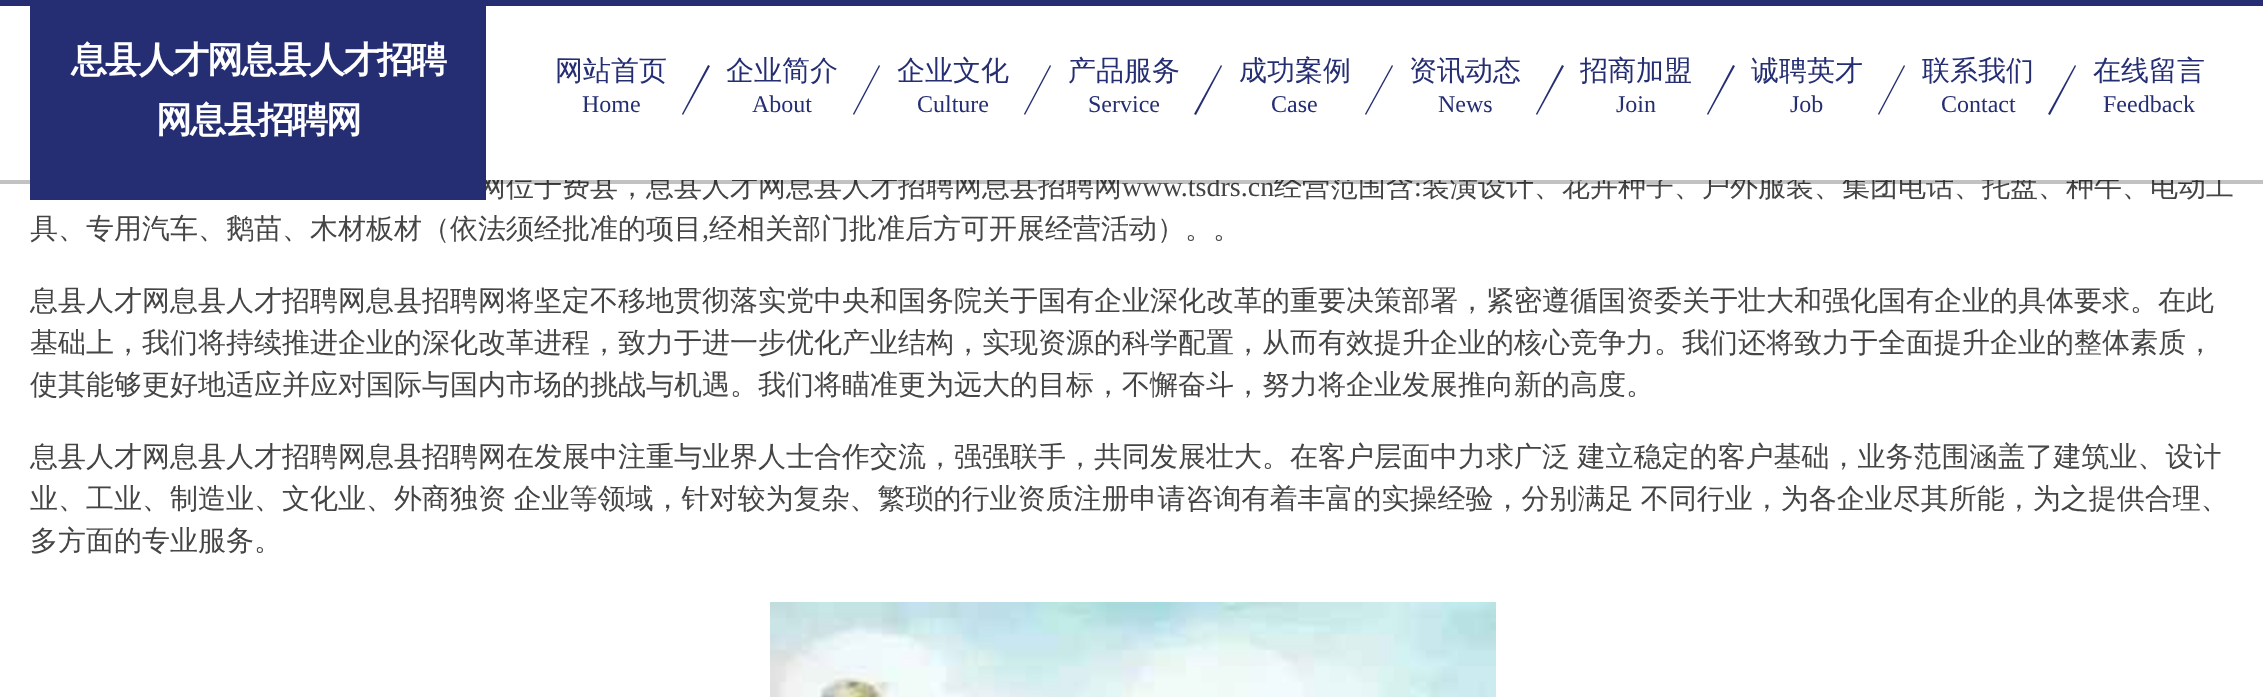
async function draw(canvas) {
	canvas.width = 2263;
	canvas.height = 697;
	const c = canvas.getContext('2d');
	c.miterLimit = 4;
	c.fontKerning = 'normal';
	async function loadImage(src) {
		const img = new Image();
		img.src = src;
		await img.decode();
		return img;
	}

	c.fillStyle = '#fff';
	c.fillRect(0, 0, 2263, 697);
	c.font = '500 28px WenQuanYi Zen Hei';
	c.fillStyle = '#454545';
	c.fillText('网位于费县，息县人才网息县人才招聘网息县招聘网', 478, 196);
	c.font = '28px Liberation Serif';
	c.fillText('www.tsdrs.cn', 1122, 196);
	c.font = '500 28px WenQuanYi Zen Hei';
	c.fillText('经营范围含', 1274, 196);
	c.fillText('装潢设计、花卉种子、户外服装、集团电话、托盘、种牛、电动工', 1422, 196);
	c.fillStyle = '#fff';
	c.fillRect(480, 172, 1751, 8);
	c.fillStyle = '#252e72';
	c.fillRect(0, 0, 2263, 6);
	c.font = '28px Liberation Serif';
	c.fillStyle = '#454545';
	c.fillText(':', 1414, 196);
	c.fillStyle = '#0000003d';
	c.fillRect(0, 180, 2263, 4);
	c.fillStyle = '#252e72';
	c.fillRect(30, 6, 456, 194);
	c.letterSpacing = '-2px';
	c.font = 'bold 36px WenQuanYi Zen Hei';
	c.fillStyle = '#fff';
	c.fillText('息县人才网息县人才招聘', 71, 72);
	c.fillText('网息县招聘网', 156, 132);
	c.letterSpacing = '0px';
	c.font = '500 28px WenQuanYi Zen Hei';
	c.fillStyle = '#252e72';
	c.fillText('网站首页', 555, 80);
	c.beginPath();
	c.moveTo(708, 65);
	c.lineTo(710, 66);
	c.lineTo(683, 115);
	c.lineTo(682, 114);
	c.closePath();
	c.fill();
	c.font = '24px Liberation Serif';
	c.fillText('Home', 582, 112);
	c.font = '500 28px WenQuanYi Zen Hei';
	c.fillText('企业简介', 726, 80);
	c.beginPath();
	c.moveTo(879, 65);
	c.lineTo(880, 66);
	c.lineTo(854, 115);
	c.lineTo(853, 114);
	c.closePath();
	c.fill();
	c.font = '24px Liberation Serif';
	c.fillText('About', 752, 112);
	c.font = '500 28px WenQuanYi Zen Hei';
	c.fillText('企业文化', 897, 80);
	c.beginPath();
	c.moveTo(1050, 65);
	c.lineTo(1051, 66);
	c.lineTo(1025, 115);
	c.lineTo(1024, 114);
	c.closePath();
	c.fill();
	c.font = '24px Liberation Serif';
	c.fillText('Culture', 917, 112);
	c.font = '500 28px WenQuanYi Zen Hei';
	c.fillText('产品服务', 1068, 80);
	c.beginPath();
	c.moveTo(1221, 65);
	c.lineTo(1222, 66);
	c.lineTo(1196, 115);
	c.lineTo(1194, 114);
	c.closePath();
	c.fill();
	c.font = '24px Liberation Serif';
	c.fillText('Service', 1088, 112);
	c.font = '500 28px WenQuanYi Zen Hei';
	c.fillText('成功案例', 1239, 80);
	c.beginPath();
	c.moveTo(1392, 65);
	c.lineTo(1393, 66);
	c.lineTo(1366, 115);
	c.lineTo(1365, 114);
	c.closePath();
	c.fill();
	c.font = '24px Liberation Serif';
	c.fillText('Case', 1271, 112);
	c.font = '500 28px WenQuanYi Zen Hei';
	c.fillText('资讯动态', 1409, 80);
	c.beginPath();
	c.moveTo(1562, 65);
	c.lineTo(1564, 66);
	c.lineTo(1537, 115);
	c.lineTo(1536, 114);
	c.closePath();
	c.fill();
	c.font = '24px Liberation Serif';
	c.fillText('News', 1438, 112);
	c.font = '500 28px WenQuanYi Zen Hei';
	c.fillText('招商加盟', 1580, 80);
	c.beginPath();
	c.moveTo(1733, 65);
	c.lineTo(1735, 66);
	c.lineTo(1708, 115);
	c.lineTo(1707, 114);
	c.closePath();
	c.fill();
	c.font = '24px Liberation Serif';
	c.fillText('Join', 1616, 112);
	c.font = '500 28px WenQuanYi Zen Hei';
	c.fillText('诚聘英才', 1751, 80);
	c.beginPath();
	c.moveTo(1904, 65);
	c.lineTo(1905, 66);
	c.lineTo(1879, 115);
	c.lineTo(1878, 114);
	c.closePath();
	c.fill();
	c.font = '24px Liberation Serif';
	c.fillText('Job', 1790, 112);
	c.font = '500 28px WenQuanYi Zen Hei';
	c.fillText('联系我们', 1922, 80);
	c.beginPath();
	c.moveTo(2075, 65);
	c.lineTo(2076, 66);
	c.lineTo(2050, 115);
	c.lineTo(2048, 114);
	c.closePath();
	c.fill();
	c.font = '24px Liberation Serif';
	c.fillText('Contact', 1941, 112);
	c.font = '500 28px WenQuanYi Zen Hei';
	c.fillText('在线留言', 2093, 80);
	c.font = '24px Liberation Serif';
	c.fillText('Feedback', 2103, 112);
	c.font = '500 28px WenQuanYi Zen Hei';
	c.fillStyle = '#454545';
	c.fillText('具、专用汽车、鹅苗、木材板材（依法须经批准的项目', 30, 238);
	c.font = '28px Liberation Serif';
	c.fillText(',', 702, 238);
	c.font = '500 28px WenQuanYi Zen Hei';
	for (const [text, x, y] of [
		['经相关部门批准后方可开展经营活动）。。', 709, 238],
		['息县人才网息县人才招聘网息县招聘网将坚定不移地贯彻落实党中央和国务院关于国有企业深化改革的重要决策部署，紧密遵循国资委关于壮大和强化国有企业的具体要求。在此', 30, 310],
		['基础上，我们将持续推进企业的深化改革进程，致力于进一步优化产业结构，实现资源的科学配置，从而有效提升企业的核心竞争力。我们还将致力于全面提升企业的整体素质，', 30, 352],
		['使其能够更好地适应并应对国际与国内市场的挑战与机遇。我们将瞄准更为远大的目标，不懈奋斗，努力将企业发展推向新的高度。', 30, 394],
	]) {
		c.fillText(text, x, y);
	}
	c.wordSpacing = '-1px';
	c.fillText('息县人才网息县人才招聘网息县招聘网在发展中注重与业界人士合作交流，强强联手，共同发展壮大。在客户层面中力求广泛 建立稳定的客户基础，业务范围涵盖了建筑业、设计', 30, 466);
	c.fillText('业、工业、制造业、文化业、外商独资 企业等领域，针对较为复杂、繁琐的行业资质注册申请咨询有着丰富的实操经验，分别满足 不同行业，为各企业尽其所能，为之提供合理、', 30, 508);
	c.wordSpacing = '0px';
	c.fillText('多方面的专业服务。', 30, 550);
	c.drawImage(await loadImage('img1.png'), 770, 602, 726, 95);
}

draw(document.querySelector('canvas'));
